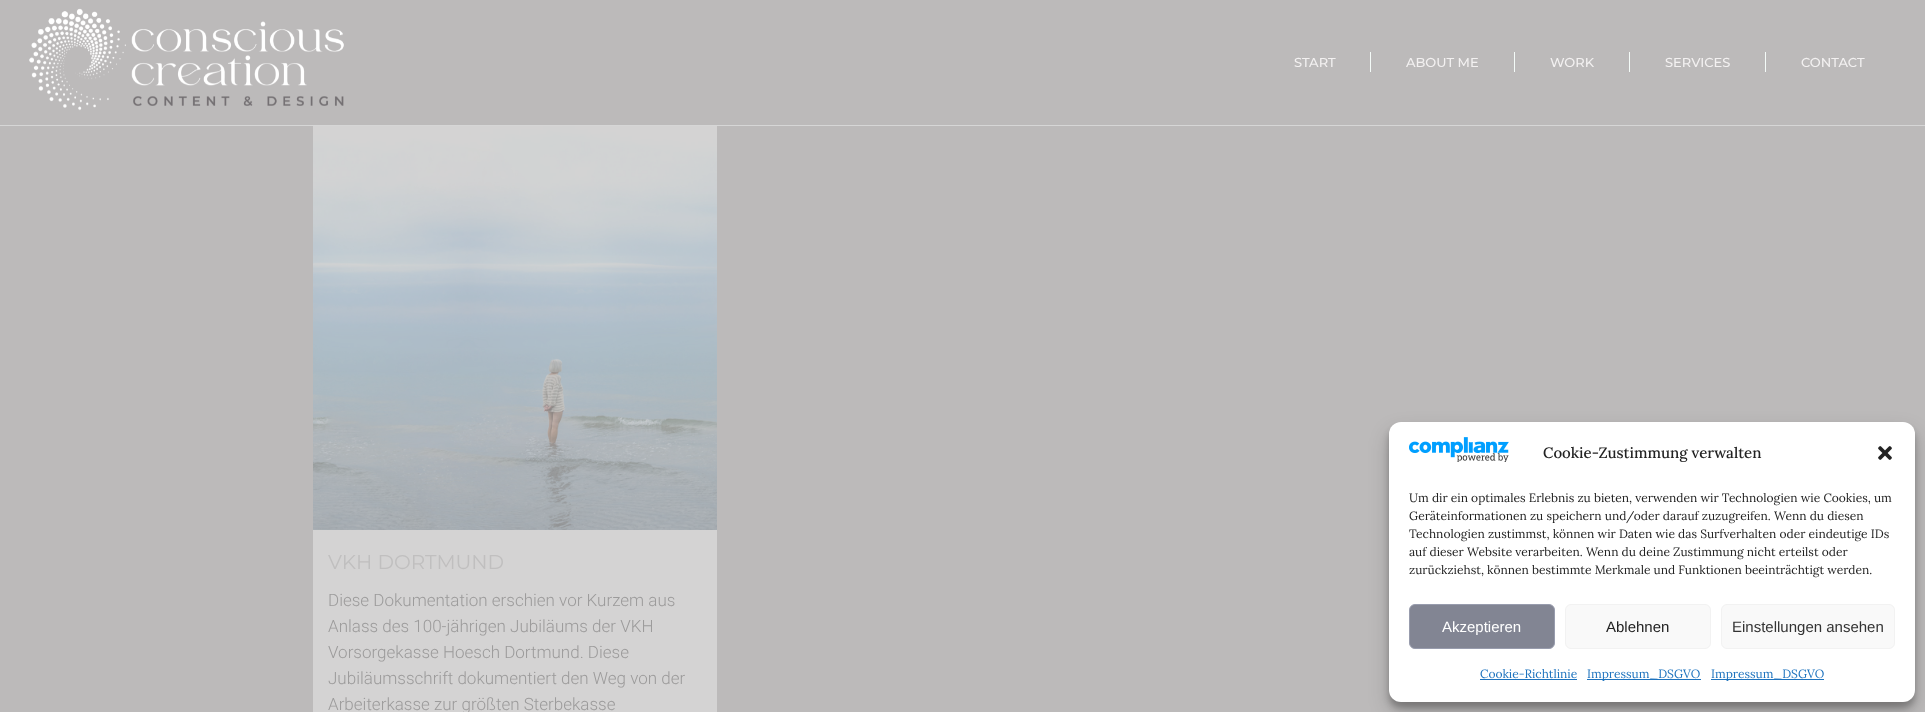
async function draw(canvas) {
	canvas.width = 1925;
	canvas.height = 712;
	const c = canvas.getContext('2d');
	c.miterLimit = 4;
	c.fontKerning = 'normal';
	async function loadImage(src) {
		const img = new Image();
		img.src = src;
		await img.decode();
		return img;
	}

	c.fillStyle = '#bcbaba';
	c.fillRect(0, 0, 1925, 712);
	c.fillStyle = '#d6d6d6';
	c.fillRect(0, 125, 1925, 1);
	c.drawImage(await loadImage('img1.png'), 29, 8, 315, 103);
	c.font = '500 13px Montserrat';
	c.fillStyle = '#f3f1f1';
	c.fillText('START', 1294, 67);
	c.fillStyle = '#f4fbf8';
	c.fillRect(1370, 52, 1, 20);
	c.fillStyle = '#f3f1f1';
	c.fillText('ABOUT ME', 1406, 67);
	c.fillStyle = '#f4fbf8';
	c.fillRect(1514, 52, 1, 20);
	c.fillStyle = '#f3f1f1';
	c.fillText('WORK', 1550, 67);
	c.fillStyle = '#f4fbf8';
	c.fillRect(1629, 52, 1, 20);
	c.fillStyle = '#f3f1f1';
	c.fillText('SERVICES', 1665, 67);
	c.fillStyle = '#f4fbf8';
	c.fillRect(1765, 52, 1, 20);
	c.fillStyle = '#f3f1f1';
	c.fillText('CONTACT', 1801, 67);
	c.drawImage(await loadImage('img2.png'), 313, 126, 404, 404);
	c.fillStyle = '#d4d3d3';
	c.fillRect(313, 530, 404, 182);
	c.font = '20px Montserrat';
	c.fillStyle = '#c0bfbf';
	c.fillText('VKH DORTMUND', 328, 569);
	c.font = '300 17px Roboto';
	c.fillStyle = '#9c9b9b';
	for (const [text, x, y] of [
		['Diese Dokumentation erschien vor Kurzem aus', 328, 606],
		['Anlass des 100-jährigen Jubiläums der VKH', 328, 632],
		['Vorsorgekasse Hoesch Dortmund. Diese', 328, 658],
		['Jubiläumsschrift dokumentiert den Weg von der', 328, 684],
		['Arbeiterkasse zur größten Sterbekasse', 328, 710],
	]) {
		c.fillText(text, x, y);
	}
	c.fillStyle = '#0000003b';
	c.filter = 'blur(3px)';
	c.beginPath();
	c.roundRect(1389, 428, 526, 280, 12);
	c.fill();
	c.filter = 'none';
	c.fillStyle = '#00000030';
	c.filter = 'blur(10px)';
	c.beginPath();
	c.roundRect(1389, 432, 526, 280, 12);
	c.fill();
	c.filter = 'none';
	c.fillStyle = '#fff';
	c.beginPath();
	c.roundRect(1389, 422, 526, 280, 12);
	c.fill();
	c.drawImage(await loadImage('img3.png'), 1409, 437, 100, 25);
	c.font = '500 15px Lora';
	c.fillStyle = '#222';
	c.fillText('Cookie-Zustimmung verwalten', 1543, 458);
	c.drawImage(await loadImage('img4.png'), 1878, 446, 14, 14);
	c.font = '12px Lora';
	for (const [text, x, y] of [
		['Um dir ein optimales Erlebnis zu bieten, verwenden wir Technologien wie Cookies, um', 1409, 502],
		['Geräteinformationen zu speichern und/oder darauf zuzugreifen. Wenn du diesen', 1409, 520],
		['Technologien zustimmst, können wir Daten wie das Surfverhalten oder eindeutige IDs', 1409, 538],
		['auf dieser Website verarbeiten. Wenn du deine Zustimmung nicht erteilst oder', 1409, 556],
		['zurückziehst, können bestimmte Merkmale und Funktionen beeinträchtigt werden.', 1409, 574],
	]) {
		c.fillText(text, x, y);
	}
	c.fillStyle = '#828593';
	c.beginPath();
	c.roundRect(1409.5, 604.5, 145, 44, 5.5);
	c.fill();
	c.strokeStyle = '#989cad';
	c.stroke();
	c.font = '15px Liberation Sans';
	c.fillStyle = '#fff';
	c.fillText('Akzeptieren', 1442, 632);
	c.fillStyle = '#f9f9f9';
	c.beginPath();
	c.roundRect(1565.5, 604.5, 145, 44, 5.5);
	c.fill();
	c.strokeStyle = '#f2f2f2';
	c.stroke();
	c.fillStyle = '#222';
	c.fillText('Ablehnen', 1606, 632);
	c.fillStyle = '#f9f9f9';
	c.beginPath();
	c.roundRect(1721.5, 604.5, 173, 44, 5.5);
	c.fill();
	c.stroke();
	c.fillStyle = '#333';
	c.fillText('Einstellungen ansehen', 1732, 632);
	c.font = '12px Lora';
	c.fillStyle = '#1e73be';
	c.fillText('Cookie-Richtlinie', 1480, 678);
	c.fillRect(1480, 679, 97, 1);
	c.fillRect(1587, 679, 114, 1);
	c.fillText('Impressum_DSGVO', 1587, 678);
	c.fillRect(1711, 679, 113, 1);
	c.fillText('Impressum_DSGVO', 1711, 678);
}

draw(document.querySelector('canvas'));
